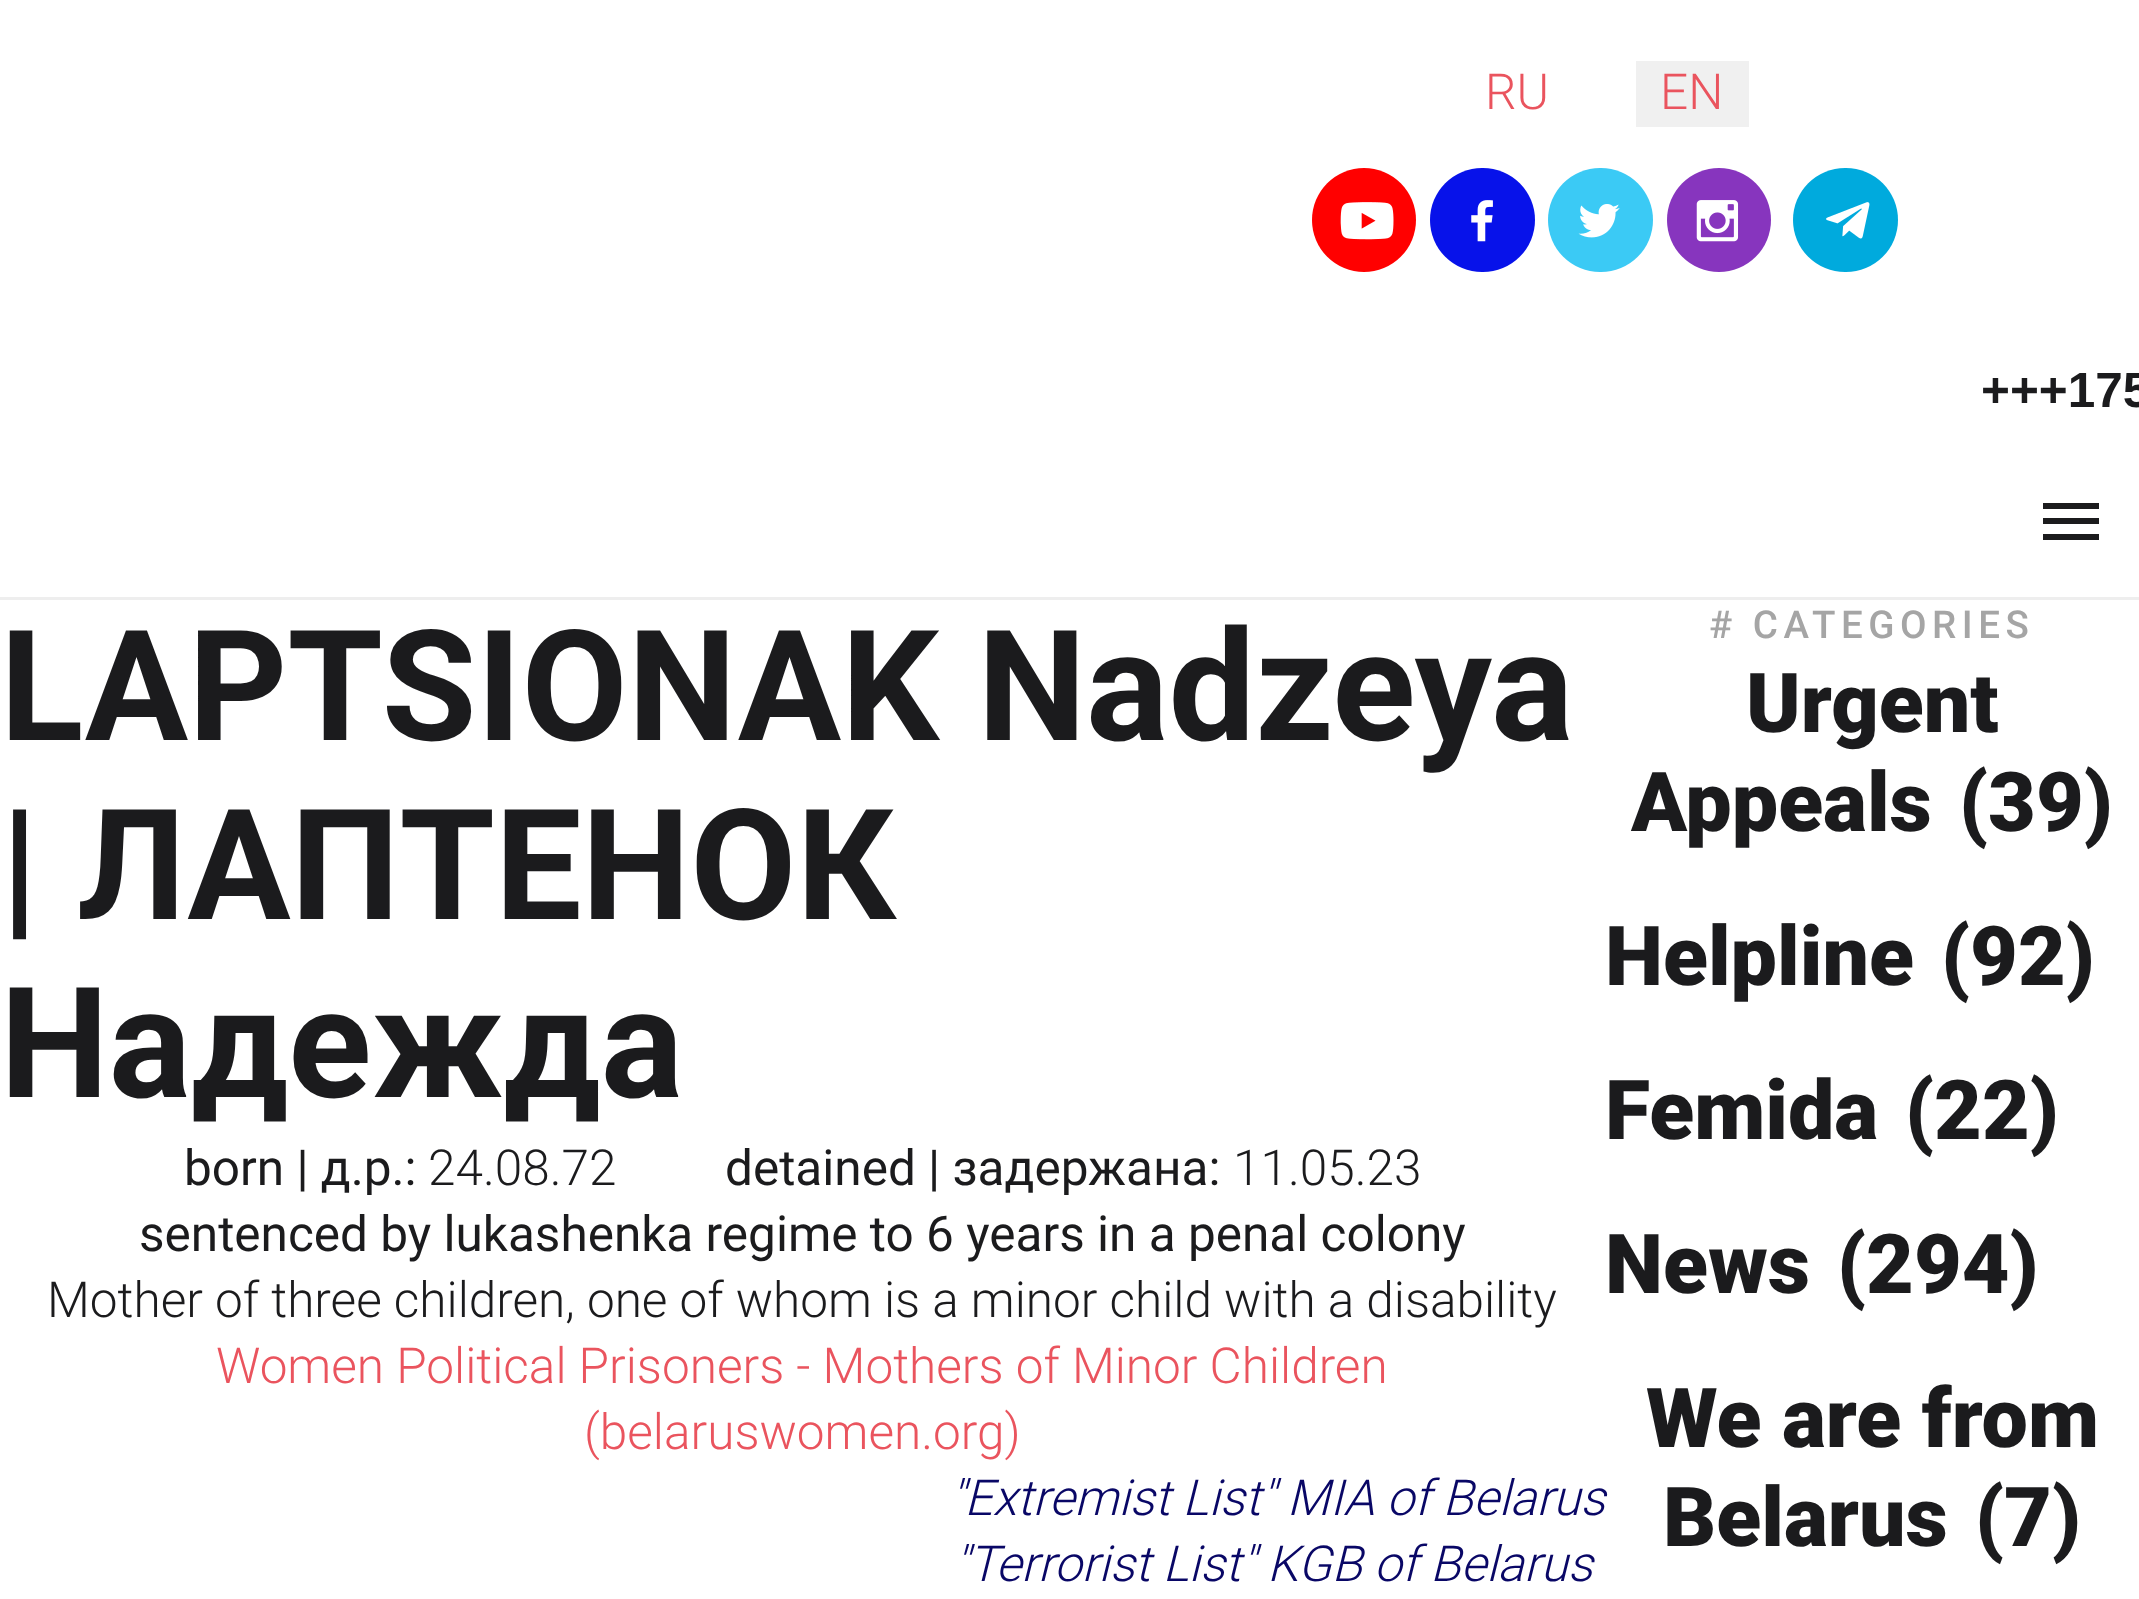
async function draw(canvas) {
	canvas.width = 2139;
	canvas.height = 1599;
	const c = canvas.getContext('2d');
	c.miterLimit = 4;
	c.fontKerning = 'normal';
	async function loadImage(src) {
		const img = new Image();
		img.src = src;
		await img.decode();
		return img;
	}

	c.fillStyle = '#fff';
	c.fillRect(0, 0, 2139, 1599);
	c.fillStyle = '#eee';
	c.fillRect(0, 597, 2139, 3);
	c.font = '300 49.5px Roboto';
	c.fillStyle = '#ea545e';
	c.fillText('RU', 1485, 109);
	c.fillStyle = '#f0f0f0';
	c.fillRect(1636, 61, 113, 66);
	c.fillStyle = '#ea545e';
	c.fillText('EN', 1660, 109);
	c.fillStyle = '#f00';
	c.beginPath();
	c.arc(1364, 220, 52, 0, 2 * Math.PI);
	c.fill();
	c.drawImage(await loadImage('img1.png'), 1340, 202, 54, 38);
	c.fillStyle = '#0712ea';
	c.beginPath();
	c.roundRect(1430, 168, 105, 104, 52);
	c.fill();
	c.drawImage(await loadImage('img2.png'), 1471, 200, 22, 42);
	c.fillStyle = '#3bcaf5';
	c.beginPath();
	c.roundRect(1548, 168, 105, 104, 52);
	c.fill();
	c.drawImage(await loadImage('img3.png'), 1578, 204, 42, 34);
	c.fillStyle = '#8735be';
	c.beginPath();
	c.arc(1719, 220, 52, 0, 2 * Math.PI);
	c.fill();
	c.drawImage(await loadImage('img4.png'), 1696, 200, 43, 42);
	c.fillStyle = '#0ad';
	c.beginPath();
	c.roundRect(1793, 168, 105, 104, 52);
	c.fill();
	c.drawImage(await loadImage('img5.png'), 1826, 202, 44, 37);
	c.font = 'bold 49.5px Liberation Sans';
	c.fillStyle = '#1b1b1d';
	c.fillText('+++175', 1981, 407);
	c.beginPath();
	c.moveTo(2043, 540);
	c.lineTo(2043, 534);
	c.lineTo(2099, 534);
	c.lineTo(2099, 540);
	c.closePath();
	c.moveTo(2043, 524);
	c.lineTo(2043, 518);
	c.lineTo(2099, 518);
	c.lineTo(2099, 524);
	c.closePath();
	c.moveTo(2043, 503);
	c.lineTo(2099, 503);
	c.lineTo(2099, 509);
	c.lineTo(2043, 509);
	c.closePath();
	c.fill();
	c.font = 'bold 154px Roboto';
	for (const [text, x, y] of [
		['LAPTSIONAK Nadzeya', 0, 740],
		['| ЛАПТЕНОК', 0, 919],
		['Надежда', 0, 1097],
	]) {
		c.fillText(text, x, y);
	}
	c.font = '49.5px Roboto';
	c.fillText('born | д.р.:', 184, 1185);
	c.font = '300 49.5px Roboto';
	c.fillText('24.08.72', 428, 1185);
	c.font = '49.5px Roboto';
	c.fillText('detained | задержана:', 725, 1185);
	c.font = '300 49.5px Roboto';
	c.fillText('11.05.23', 1233, 1185);
	c.font = '49.5px Roboto';
	c.fillText('sentenced by lukashenka regime to 6 years in a penal colony', 139, 1251);
	c.font = '300 49.5px Roboto';
	c.fillText('Mother of three children, one of whom is a minor child with a disability', 47, 1317);
	c.fillStyle = '#ea545e';
	c.fillText('Women Political Prisoners - Mothers of Minor Children', 216, 1383);
	c.fillText('(belaruswomen.org)', 584, 1449);
	c.font = 'italic 300 49.5px Roboto';
	c.fillStyle = '#090766';
	c.fillText('"Extremist List" MIA of Belarus', 950, 1515);
	c.fillText('"Terrorist List" KGB of Belarus', 954, 1581);
	c.letterSpacing = '5.5px';
	c.font = '500 38.5px Roboto';
	c.fillStyle = '#a5a5a5';
	c.fillText('# CATEGORIES', 1709, 638);
	c.letterSpacing = '0px';
	c.font = '900 82.5px Roboto';
	c.fillStyle = '#1b1b1d';
	for (const [text, x, y] of [
		['Urgent', 1746, 732],
		['Appeals', 1631, 831],
		['(39)', 1959, 831],
		['Helpline', 1605, 985],
		['(92)', 1941, 985],
		['Femida', 1605, 1139],
		['(22)', 1905, 1139],
		['News', 1605, 1293],
		['(294)', 1837, 1293],
		['We are from', 1646, 1447],
		['Belarus', 1663, 1546],
		['(7)', 1975, 1546],
	]) {
		c.fillText(text, x, y);
	}
}

draw(document.querySelector('canvas'));
